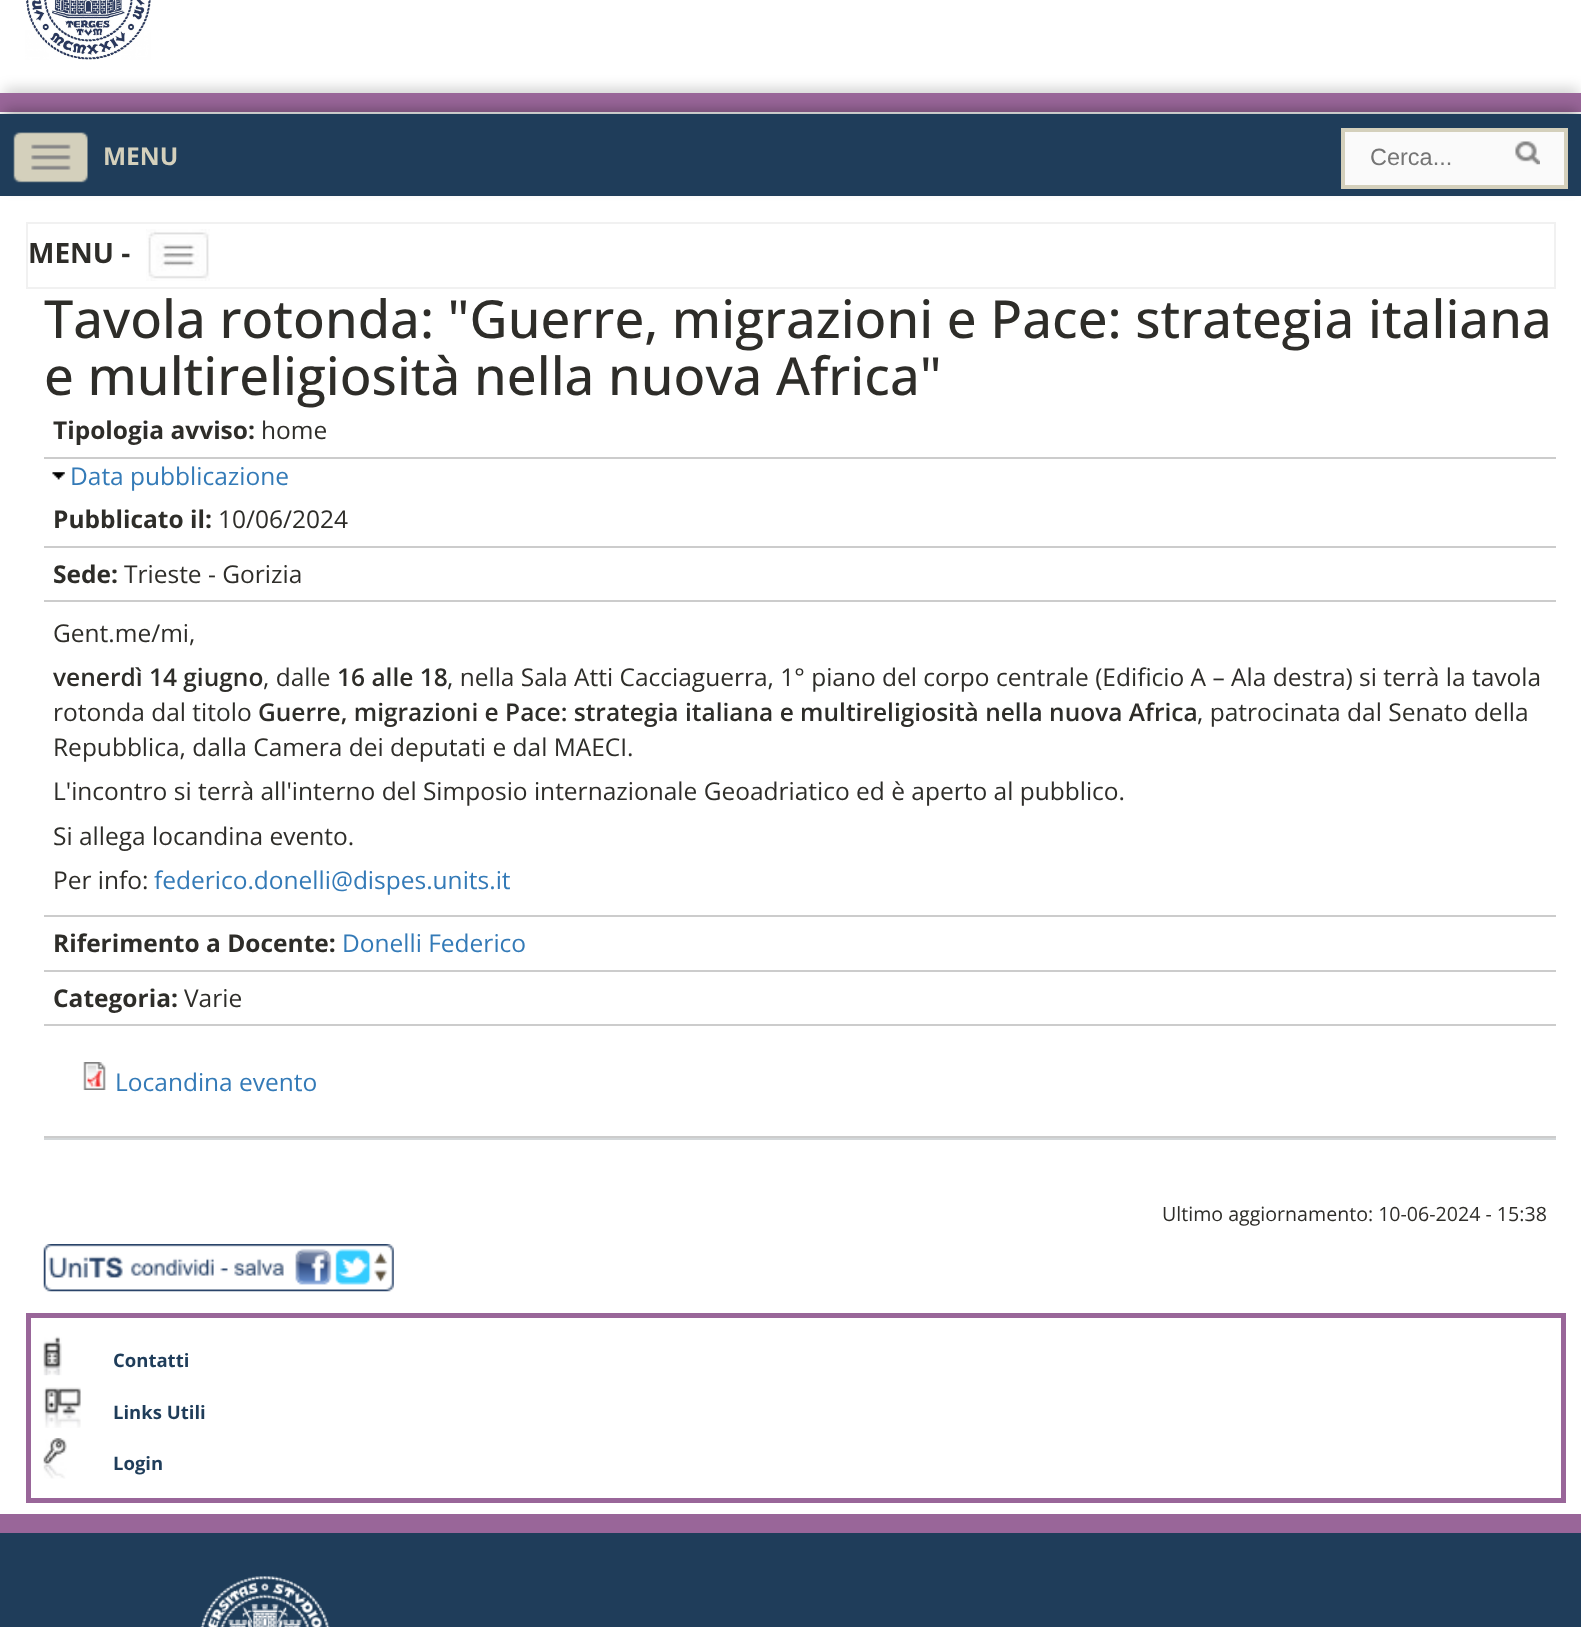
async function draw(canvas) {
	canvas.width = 1581;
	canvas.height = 1627;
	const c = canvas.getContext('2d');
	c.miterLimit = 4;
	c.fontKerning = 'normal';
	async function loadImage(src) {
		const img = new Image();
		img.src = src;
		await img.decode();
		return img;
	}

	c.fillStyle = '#fff';
	c.fillRect(0, 0, 1581, 1627);
	c.drawImage(await loadImage('img1.png'), 25, 0, 126, 60);
	c.fillStyle = '#00000033';
	c.filter = 'blur(7px)';
	c.beginPath();
	c.rect(4, 89, 1575, 13);
	c.fill();
	c.filter = 'none';
	c.fillStyle = '#969';
	c.fillRect(0, 93, 1581, 19);
	c.fillStyle = '#0000004d';
	c.filter = 'blur(7px)';
	c.beginPath();
	c.rect(4, 110, 1575, 76);
	c.fill();
	c.filter = 'none';
	c.fillStyle = '#1f3d5a';
	c.fillRect(0, 114, 1581, 82);
	c.drawImage(await loadImage('img2.png'), 13, 132, 75, 51);
	c.font = 'bold 24.5px Open Sans';
	c.fillStyle = '#d4d0bc';
	c.fillText('MENU', 103, 165);
	c.fillStyle = '#fafafa';
	c.beginPath();
	c.rect(1343, 130, 223, 57);
	c.fill();
	c.strokeStyle = '#d4d0bc';
	c.lineWidth = 4;
	c.stroke();
	c.font = '23.5px Liberation Sans';
	c.fillStyle = '#757575';
	c.fillText('Cerca...', 1370, 165);
	c.drawImage(await loadImage('img3.png'), 1515, 141, 25, 24);
	c.strokeStyle = '#f1f1f1';
	c.lineWidth = 2;
	c.strokeRect(27, 223, 1528, 65);
	c.font = 'bold 28px Open Sans';
	c.fillStyle = '#2e2d29';
	c.fillText('MENU -', 28, 263);
	c.drawImage(await loadImage('img4.png'), 146, 229, 64, 52);
	c.font = '500 52.5px Open Sans';
	c.fillText('Tavola rotonda: "Guerre, migrazioni e Pace: strategia italiana', 44, 338);
	c.fillText('e multireligiosità nella nuova Africa"', 44, 395);
	c.fillStyle = '#ccc';
	c.fillRect(44, 457, 1512, 2);
	c.font = 'bold 24.5px Open Sans';
	c.fillStyle = '#2e2d29';
	c.fillText('Tipologia avviso:', 53, 439);
	c.font = '24.5px Open Sans';
	c.fillText('home', 261, 439);
	c.drawImage(await loadImage('img5.png'), 52, 472, 13, 8);
	c.fillStyle = '#337ab7';
	c.fillText('Data pubblicazione', 70, 485);
	c.fillStyle = '#ccc';
	c.fillRect(44, 546, 1512, 2);
	c.font = 'bold 24.5px Open Sans';
	c.fillStyle = '#2e2d29';
	c.fillText('Pubblicato il:', 53, 528);
	c.font = '24.5px Open Sans';
	c.fillText('10/06/2024', 218, 528);
	c.fillStyle = '#ccc';
	c.fillRect(44, 600, 1512, 2);
	c.font = 'bold 24.5px Open Sans';
	c.fillStyle = '#2e2d29';
	c.fillText('Sede:', 53, 583);
	c.font = '24.5px Open Sans';
	c.fillText('Trieste - Gorizia', 124, 583);
	c.fillStyle = '#ccc';
	c.fillRect(44, 915, 1512, 2);
	c.fillStyle = '#2e2d29';
	c.fillText('Gent.me/mi,', 53, 642);
	c.font = '600 24.5px Open Sans';
	c.fillText('venerdì 14 giugno', 53, 686);
	c.font = '24.5px Open Sans';
	c.fillText(', dalle', 263, 686);
	c.font = '600 24.5px Open Sans';
	c.fillText('16 alle 18', 337, 686);
	c.font = '24.5px Open Sans';
	c.fillText(', nella Sala Atti Cacciaguerra, 1° piano del corpo centrale (Edificio A – Ala destra) si terrà la tavola', 447, 686);
	c.fillText('rotonda dal titolo', 53, 721);
	c.font = '600 24.5px Open Sans';
	c.fillText('Guerre, migrazioni e Pace: strategia italiana e multireligiosità nella nuova Africa', 258, 721);
	c.font = '24.5px Open Sans';
	for (const [text, x, y] of [
		[', patrocinata dal Senato della', 1197, 721],
		['Repubblica, dalla Camera dei deputati e dal MAECI.', 53, 756],
		['L\'incontro si terrà all\'interno del Simposio internazionale Geoadriatico ed è aperto al pubblico.', 53, 800],
		['Si allega locandina evento.', 53, 845],
		['Per info:', 53, 889],
	]) {
		c.fillText(text, x, y);
	}
	c.fillStyle = '#337ab7';
	c.fillText('federico.donelli@dispes.units.it', 154, 889);
	c.fillStyle = '#ccc';
	c.fillRect(44, 970, 1512, 2);
	c.font = 'bold 24.5px Open Sans';
	c.fillStyle = '#2e2d29';
	c.fillText('Riferimento a Docente:', 53, 952);
	c.font = '24.5px Open Sans';
	c.fillStyle = '#337ab7';
	c.fillText('Donelli Federico', 342, 952);
	c.fillStyle = '#ccc';
	c.fillRect(44, 1024, 1512, 2);
	c.font = 'bold 24.5px Open Sans';
	c.fillStyle = '#2e2d29';
	c.fillText('Categoria:', 53, 1007);
	c.font = '24.5px Open Sans';
	c.fillText('Varie', 184, 1007);
	c.fillStyle = '#d3d7d9';
	c.fillRect(44, 1138, 1512, 2);
	c.fillStyle = '#ccc';
	c.fillRect(44, 1136, 1512, 2);
	c.drawImage(await loadImage('img6.png'), 83, 1062, 23, 28);
	c.fillStyle = '#337ab7';
	c.fillText('Locandina evento', 115, 1091);
	c.font = '19.6px Open Sans';
	c.fillStyle = '#2e2d29';
	c.fillText('Ultimo aggiornamento: 10-06-2024 - 15:38', 1162, 1221);
	c.drawImage(await loadImage('img7.png'), 43, 1244, 351, 48);
	c.strokeStyle = '#969';
	c.lineWidth = 5;
	c.strokeRect(28.5, 1315.5, 1535, 185);
	c.drawImage(await loadImage('img8.png'), 43, 1336, 19, 40);
	c.font = 'bold 18.5px Open Sans';
	c.fillStyle = '#1f3d5a';
	c.fillText('Contatti', 113, 1367);
	c.drawImage(await loadImage('img9.png'), 43, 1387, 38, 41);
	c.fillText('Links Utili', 113, 1419);
	c.drawImage(await loadImage('img10.png'), 43, 1438, 24, 41);
	c.fillText('Login', 113, 1470);
	c.fillRect(0, 1533, 1581, 94);
	c.fillStyle = '#969';
	c.fillRect(0, 1514, 1581, 19);
	c.drawImage(await loadImage('img11.png'), 200, 1576, 130, 51);
}

draw(document.querySelector('canvas'));
